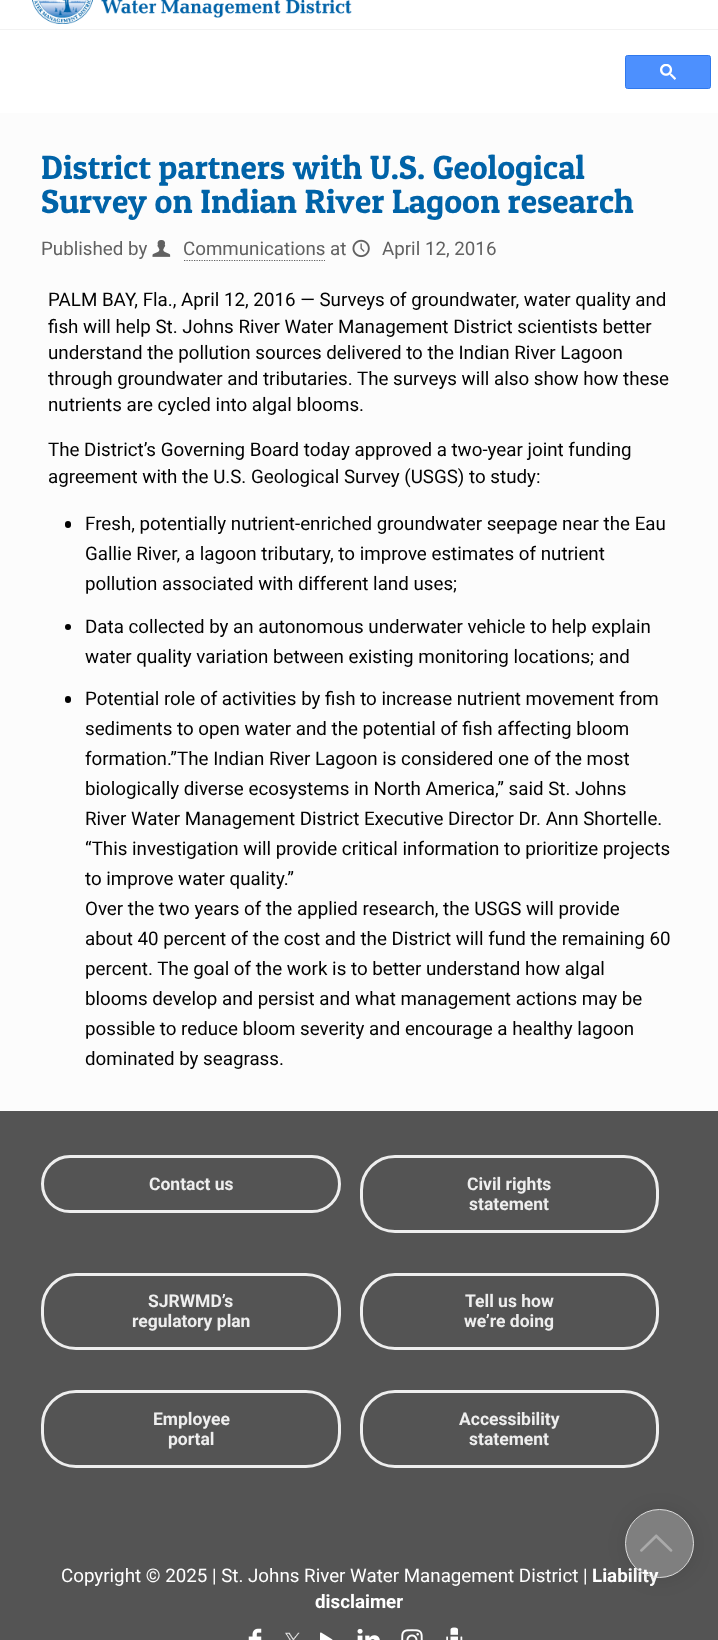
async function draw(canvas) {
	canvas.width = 718;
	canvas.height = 1640;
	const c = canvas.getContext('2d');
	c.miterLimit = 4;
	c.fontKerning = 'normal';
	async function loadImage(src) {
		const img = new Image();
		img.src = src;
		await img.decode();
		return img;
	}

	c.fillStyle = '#fcfcfc';
	c.fillRect(0, 0, 718, 1640);
	c.fillStyle = '#fff';
	c.fillRect(0, 0, 718, 113);
	c.fillStyle = '#f2f2f2';
	c.fillRect(0, 29, 718, 1);
	c.drawImage(await loadImage('img1.png'), 32, 0, 320, 24);
	c.fillStyle = '#4d90fe';
	c.beginPath();
	c.roundRect(625.5, 55.5, 85, 33, 2);
	c.fill();
	c.strokeStyle = '#3079ed';
	c.stroke();
	c.drawImage(await loadImage('img2.png'), 660, 64, 16, 16);
	c.font = '33.75px Patua One';
	c.fillStyle = '#0063a8';
	c.fillText('District partners with U.S. Geological', 41, 179);
	c.fillText('Survey on Indian River Lagoon research', 41, 213);
	c.font = '18.75px Roboto';
	c.fillStyle = '#616161';
	c.fillText('Published by', 41, 255);
	c.drawImage(await loadImage('img3.png'), 152, 240, 19, 17);
	c.fillText('Communications at', 183, 255);
	c.beginPath();
	c.moveTo(184, 260.5);
	c.lineTo(325, 260.5);
	c.strokeStyle = '#616161';
	c.lineWidth = 1.2;
	c.setLineDash([1.25, 1.25]);
	c.stroke();
	c.drawImage(await loadImage('img4.png'), 352, 239, 18, 19);
	c.fillText('April 12, 2016', 382, 255);
	c.fillStyle = '#020202';
	for (const [text, x, y] of [
		['PALM BAY, Fla., April 12, 2016 — Surveys of groundwater, water quality and', 48, 306],
		['fish will help St. Johns River Water Management District scientists better', 48, 333],
		['understand the pollution sources delivered to the Indian River Lagoon', 48, 359],
		['through groundwater and tributaries. The surveys will also show how these', 48, 385],
		['nutrients are cycled into algal blooms.', 48, 411],
		['The District’s Governing Board today approved a two-year joint funding', 48, 456],
		['agreement with the U.S. Geological Survey (USGS) to study:', 48, 483],
	]) {
		c.fillText(text, x, y);
	}
	c.beginPath();
	c.roundRect(65, 521, 6, 7, 3);
	c.fill();
	for (const [text, x, y] of [
		['Fresh, potentially nutrient-enriched groundwater seepage near the Eau', 85, 530],
		['Gallie River, a lagoon tributary, to improve estimates of nutrient', 85, 560],
		['pollution associated with different land uses;', 85, 590],
	]) {
		c.fillText(text, x, y);
	}
	c.beginPath();
	c.arc(68, 627, 3, 0, 2 * Math.PI);
	c.fill();
	c.fillText('Data collected by an autonomous underwater vehicle to help explain', 85, 633);
	c.fillText('water quality variation between existing monitoring locations; and', 85, 663);
	c.beginPath();
	c.roundRect(65, 696, 6, 7, 3);
	c.fill();
	for (const [text, x, y] of [
		['Potential role of activities by fish to increase nutrient movement from', 85, 705],
		['sediments to open water and the potential of fish affecting bloom', 85, 735],
		['formation.”The Indian River Lagoon is considered one of the most', 85, 765],
		['biologically diverse ecosystems in North America,” said St. Johns', 85, 795],
		['River Water Management District Executive Director Dr. Ann Shortelle.', 85, 825],
		['“This investigation will provide critical information to prioritize projects', 85, 855],
		['to improve water quality.”', 85, 885],
		['Over the two years of the applied research, the USGS will provide', 85, 915],
		['about 40 percent of the cost and the District will fund the remaining 60', 85, 945],
		['percent. The goal of the work is to better understand how algal', 85, 975],
		['blooms develop and persist and what management actions may be', 85, 1005],
		['possible to reduce bloom severity and encourage a healthy lagoon', 85, 1035],
		['dominated by seagrass.', 85, 1065],
	]) {
		c.fillText(text, x, y);
	}
	c.fillStyle = '#545454';
	c.fillRect(0, 1111, 718, 529);
	c.beginPath();
	c.roundRect(42.5, 1156.5, 297, 55, 27.5);
	c.strokeStyle = '#eee';
	c.lineWidth = 3;
	c.setLineDash([]);
	c.stroke();
	c.font = 'bold 17.5px Roboto';
	c.fillStyle = '#eee';
	c.fillText('Contact us', 149, 1190);
	c.beginPath();
	c.roundRect(361.5, 1156.5, 296, 75, 33.5);
	c.stroke();
	c.fillText('Civil rights', 467, 1190);
	c.fillText('statement', 469, 1210);
	c.beginPath();
	c.roundRect(42.5, 1274.5, 297, 74, 33.5);
	c.stroke();
	c.fillText('SJRWMD’s', 148, 1307);
	c.fillText('regulatory plan', 132, 1327);
	c.beginPath();
	c.roundRect(361.5, 1274.5, 296, 74, 33.5);
	c.stroke();
	c.fillText('Tell us how', 465, 1307);
	c.fillText('we’re doing', 464, 1327);
	c.beginPath();
	c.roundRect(42.5, 1391.5, 297, 75, 33.5);
	c.stroke();
	c.fillText('Employee', 153, 1425);
	c.fillText('portal', 168, 1445);
	c.beginPath();
	c.roundRect(361.5, 1391.5, 296, 75, 33.5);
	c.stroke();
	c.fillText('Accessibility', 459, 1425);
	c.fillText('statement', 469, 1445);
	c.font = '18.75px Roboto';
	c.fillStyle = '#fff';
	c.fillText('Copyright © 2025 | St. Johns River Water Management District |', 61, 1582);
	c.font = 'bold 18.75px Roboto';
	c.fillText('Liability', 592, 1582);
	c.fillText('disclaimer', 315, 1608);
	c.drawImage(await loadImage('img5.png'), 248, 1628, 14, 12);
	c.drawImage(await loadImage('img6.png'), 285, 1632, 15, 8);
	c.drawImage(await loadImage('img7.png'), 320, 1632, 13, 8);
	c.drawImage(await loadImage('img8.png'), 357, 1628, 23, 12);
	c.drawImage(await loadImage('img9.png'), 401, 1629, 22, 11);
	c.drawImage(await loadImage('img10.png'), 446, 1627, 17, 13);
	c.save();
	c.beginPath();
	c.moveTo(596, 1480);
	c.lineTo(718, 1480);
	c.lineTo(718, 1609);
	c.lineTo(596, 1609);
	c.closePath();
	c.moveTo(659.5, 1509);
	c.bezierCurveTo(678.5, 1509, 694, 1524.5, 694, 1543.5);
	c.bezierCurveTo(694, 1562.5, 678.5, 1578, 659.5, 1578);
	c.bezierCurveTo(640.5, 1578, 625, 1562.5, 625, 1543.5);
	c.bezierCurveTo(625, 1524.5, 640.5, 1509, 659.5, 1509);
	c.closePath();
	c.clip('evenodd');
	c.fillStyle = '#0000001a';
	c.filter = 'blur(9.5px)';
	c.beginPath();
	c.roundRect(626, 1510, 69, 69, 34.5);
	c.fill();
	c.filter = 'none';
	c.restore();
	c.fillStyle = '#ffffff40';
	c.beginPath();
	c.arc(659.5, 1543.5, 34, 0, 2 * Math.PI);
	c.fill();
	c.strokeStyle = '#ddd';
	c.lineWidth = 1;
	c.stroke();
	c.drawImage(await loadImage('img11.png'), 640, 1534, 33, 18);
}

draw(document.querySelector('canvas'));
